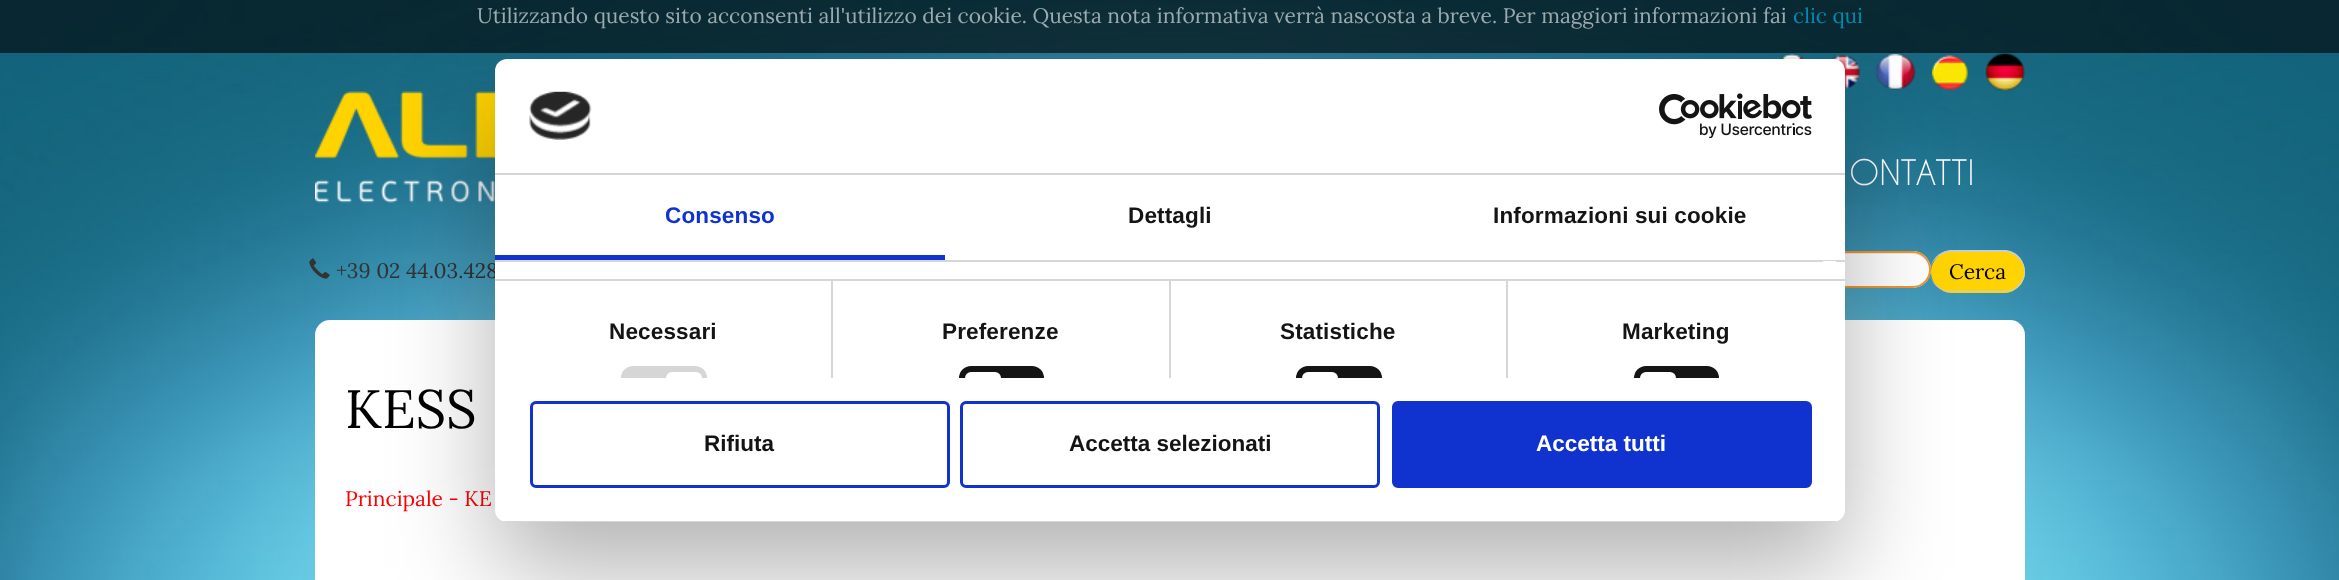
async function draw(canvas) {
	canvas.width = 2339;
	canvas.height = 580;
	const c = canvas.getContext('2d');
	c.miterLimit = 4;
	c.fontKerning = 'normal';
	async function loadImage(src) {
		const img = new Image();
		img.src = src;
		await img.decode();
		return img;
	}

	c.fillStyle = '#fff';
	c.fillRect(0, 0, 2339, 580);
	c.drawImage(await loadImage('img1.png'), 0, 0, 2339, 580);
	c.fillStyle = '#00000099';
	c.fillRect(0, 0, 2339, 53);
	c.font = '21px Lora';
	c.fillStyle = '#9eabaf';
	c.fillText('Utilizzando questo sito acconsenti all\'utilizzo dei cookie. Questa nota informativa verrà nascosta a breve. Per maggiori informazioni fai', 477, 23);
	c.fillStyle = '#048bae';
	c.fillText('clic qui', 1793, 23);
	c.drawImage(await loadImage('img2.png'), 1779, 54, 26, 5);
	c.drawImage(await loadImage('img3.png'), 1830, 55, 30, 34);
	c.drawImage(await loadImage('img4.png'), 1876, 54, 40, 36);
	c.drawImage(await loadImage('img5.png'), 1932, 55, 36, 35);
	c.drawImage(await loadImage('img6.png'), 1985, 53, 40, 39);
	c.drawImage(await loadImage('img7.png'), 315, 91, 180, 112);
	c.font = '33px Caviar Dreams';
	c.fillStyle = '#fff';
	c.fillText('ONTATTI', 1849, 185);
	c.drawImage(await loadImage('img8.png'), 309, 258, 21, 21);
	c.font = '21px Lora';
	c.fillStyle = '#333';
	c.fillText('+39 02 44.03.428', 336, 278);
	c.fillStyle = '#ffd300';
	c.beginPath();
	c.roundRect(1931, 251, 94, 42, 21);
	c.fill();
	c.fillStyle = '#ccc';
	c.beginPath();
	c.moveTo(1952, 250);
	c.lineTo(2004, 250);
	c.bezierCurveTo(2016, 250, 2025, 260, 2025, 272);
	c.bezierCurveTo(2025, 283, 2016, 292, 2004, 292);
	c.lineTo(1952, 292);
	c.bezierCurveTo(1940, 292, 1930, 283, 1930, 272);
	c.bezierCurveTo(1930, 260, 1940, 250, 1952, 250);
	c.closePath();
	c.moveTo(1952, 252);
	c.lineTo(2004, 252);
	c.bezierCurveTo(2015, 252, 2024, 261, 2024, 272);
	c.bezierCurveTo(2024, 282, 2015, 291, 2004, 291);
	c.lineTo(1952, 291);
	c.bezierCurveTo(1940, 291, 1930, 282, 1930, 272);
	c.bezierCurveTo(1930, 261, 1940, 252, 1952, 252);
	c.closePath();
	c.fill('evenodd');
	c.fillStyle = '#fff';
	c.beginPath();
	c.roundRect(1632, 251, 299, 37, 18.5);
	c.fill();
	c.fillStyle = '#ececec';
	c.beginPath();
	c.moveTo(1651, 254);
	c.lineTo(1912, 254);
	c.bezierCurveTo(1921, 254, 1929, 261, 1929, 270);
	c.bezierCurveTo(1929, 260, 1921, 252, 1912, 252);
	c.lineTo(1652, 252);
	c.bezierCurveTo(1642, 252, 1634, 260, 1634, 270);
	c.bezierCurveTo(1634, 261, 1641, 254, 1651, 254);
	c.closePath();
	c.fill();
	c.beginPath();
	c.roundRect(1633, 252, 297, 35, 17.5);
	c.strokeStyle = '#f2942e';
	c.lineWidth = 2;
	c.stroke();
	c.fillStyle = '#000';
	c.fillText('Cerca', 1949, 279);
	c.fillStyle = '#fff';
	c.beginPath();
	c.roundRect(315, 320, 1710, 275, 15);
	c.fill();
	c.font = '54px Lora';
	c.fillStyle = '#000';
	c.fillText('KESS', 345, 428);
	c.font = '21px Lora';
	c.fillStyle = '#f00';
	c.fillText('Principale - KE', 345, 506);
	c.fillStyle = '#0000004d';
	c.filter = 'blur(51px)';
	c.beginPath();
	c.roundRect(495, 107, 1350, 463, 12);
	c.fill();
	c.filter = 'none';
	c.fillStyle = '#fff';
	c.beginPath();
	c.roundRect(495, 59, 1350, 463, 12);
	c.fill();
	c.fillStyle = '#d6d6d6';
	c.fillRect(495, 173, 1350, 2);
	c.drawImage(await loadImage('img9.png'), 529, 91, 63, 49);
	c.drawImage(await loadImage('img10.png'), 1659, 93, 153, 45);
	c.fillRect(495, 260, 1350, 2);
	c.fillStyle = '#1032cf';
	c.fillRect(495, 255, 450, 5);
	c.letterSpacing = '0.15px';
	c.font = 'bold 22.5px Liberation Sans';
	c.fillText('Consenso', 665, 223);
	c.fillStyle = '#141414';
	c.fillText('Dettagli', 1128, 223);
	c.fillText('Informazioni sui cookie', 1493, 223);
	for (const [x, y, w, h, color] of [
		[495, 279, 1350, 2, '#d6d6d6'],
		[1823, 261, 13, 1, '#fff'],
		[495, 279, 1, 2, '#e5e5e5'],
		[831, 281, 2, 97, '#d6d6d6'],
	]) {
		c.fillStyle = color;
		c.fillRect(x, y, w, h);
	}
	c.fillStyle = '#141414';
	c.fillText('Necessari', 609, 339);
	c.fillStyle = '#d6d6d6';
	c.beginPath();
	c.roundRect(621, 366, 86, 12, [24, 24, 0, 0]);
	c.fill();
	c.fillStyle = '#fff';
	c.beginPath();
	c.roundRect(666, 372, 36, 6, [18, 18, 0, 0]);
	c.fill();
	c.fillStyle = '#d6d6d6';
	c.fillRect(1169, 281, 2, 97);
	c.fillStyle = '#141414';
	c.fillText('Preferenze', 942, 339);
	c.beginPath();
	c.roundRect(959, 366, 85, 12, [24, 24, 0, 0]);
	c.fill();
	c.fillStyle = '#fff';
	c.beginPath();
	c.roundRect(965, 372, 36, 6, [18, 18, 0, 0]);
	c.fill();
	c.fillStyle = '#d6d6d6';
	c.fillRect(1506, 281, 2, 97);
	c.fillStyle = '#141414';
	c.fillText('Statistiche', 1280, 339);
	c.beginPath();
	c.roundRect(1296, 366, 86, 12, [24, 24, 0, 0]);
	c.fill();
	c.fillStyle = '#fff';
	c.beginPath();
	c.roundRect(1302, 372, 36, 6, [18, 18, 0, 0]);
	c.fill();
	c.fillStyle = '#141414';
	c.fillText('Marketing', 1622, 339);
	c.beginPath();
	c.roundRect(1634, 366, 85, 12, [24, 24, 0, 0]);
	c.fill();
	c.fillStyle = '#fff';
	c.beginPath();
	c.roundRect(1640, 372, 36, 6, [18, 18, 0, 0]);
	c.fill();
	c.save();
	c.beginPath();
	c.roundRect(495, 59, 1350, 463, 12);
	c.clip();
	c.fillStyle = '#d6d6d6';
	c.fillRect(495, 521, 1350, 1);
	c.restore();
	c.beginPath();
	c.roundRect(531.5, 402.5, 417, 84, 4.5);
	c.strokeStyle = '#1032cf';
	c.lineWidth = 3;
	c.stroke();
	c.letterSpacing = '0px';
	c.fillStyle = '#141414';
	c.fillText('Rifiuta', 704, 451);
	c.beginPath();
	c.roundRect(961.5, 402.5, 417, 84, 4.5);
	c.stroke();
	c.fillText('Accetta selezionati', 1069, 451);
	c.fillStyle = '#1032cf';
	c.beginPath();
	c.roundRect(1393.5, 402.5, 417, 84, 4.5);
	c.fill();
	c.stroke();
	c.fillStyle = '#fff';
	c.fillText('Accetta tutti', 1536, 451);
}

draw(document.querySelector('canvas'));
